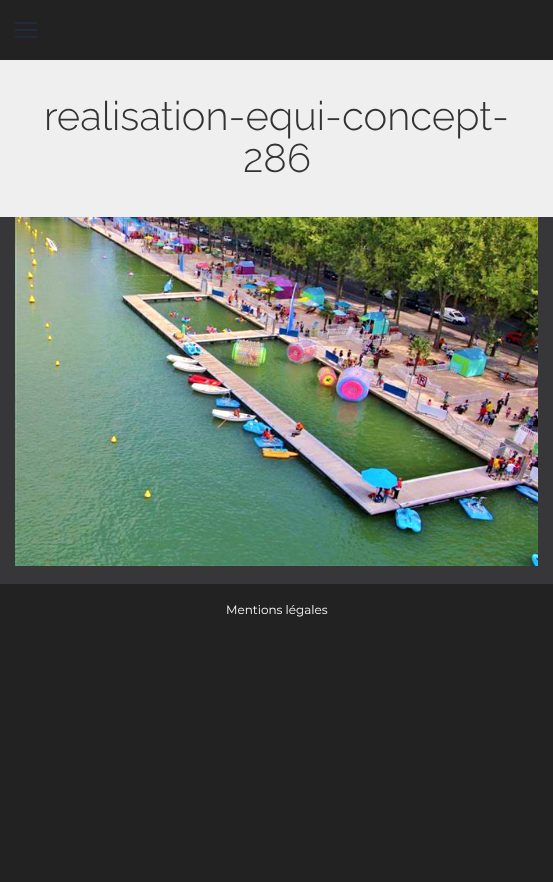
async function draw(canvas) {
	canvas.width = 553;
	canvas.height = 882;
	const c = canvas.getContext('2d');
	c.miterLimit = 4;
	c.fontKerning = 'normal';
	async function loadImage(src) {
		const img = new Image();
		img.src = src;
		await img.decode();
		return img;
	}

	c.fillStyle = '#222';
	c.fillRect(0, 0, 553, 882);
	for (const [x, y, w, h, color] of [
		[0, 217, 553, 367, '#373739'],
		[15, 29, 22, 2, '#202b40'],
		[15, 22, 22, 2, '#202b40'],
		[15, 36, 22, 2, '#202b40'],
		[0, 60, 553, 157, '#efefef'],
	]) {
		c.fillStyle = color;
		c.fillRect(x, y, w, h);
	}
	c.font = '300 40px Raleway';
	c.fillStyle = '#333';
	c.fillText('realisation-equi-concept-', 44, 130);
	c.fillText('286', 243, 172);
	c.drawImage(await loadImage('img1.png'), 15, 217, 523, 349);
	c.font = '12px Montserrat';
	c.fillStyle = '#f6f7fa';
	c.fillText('Mentions légales', 226, 614);
}

draw(document.querySelector('canvas'));
